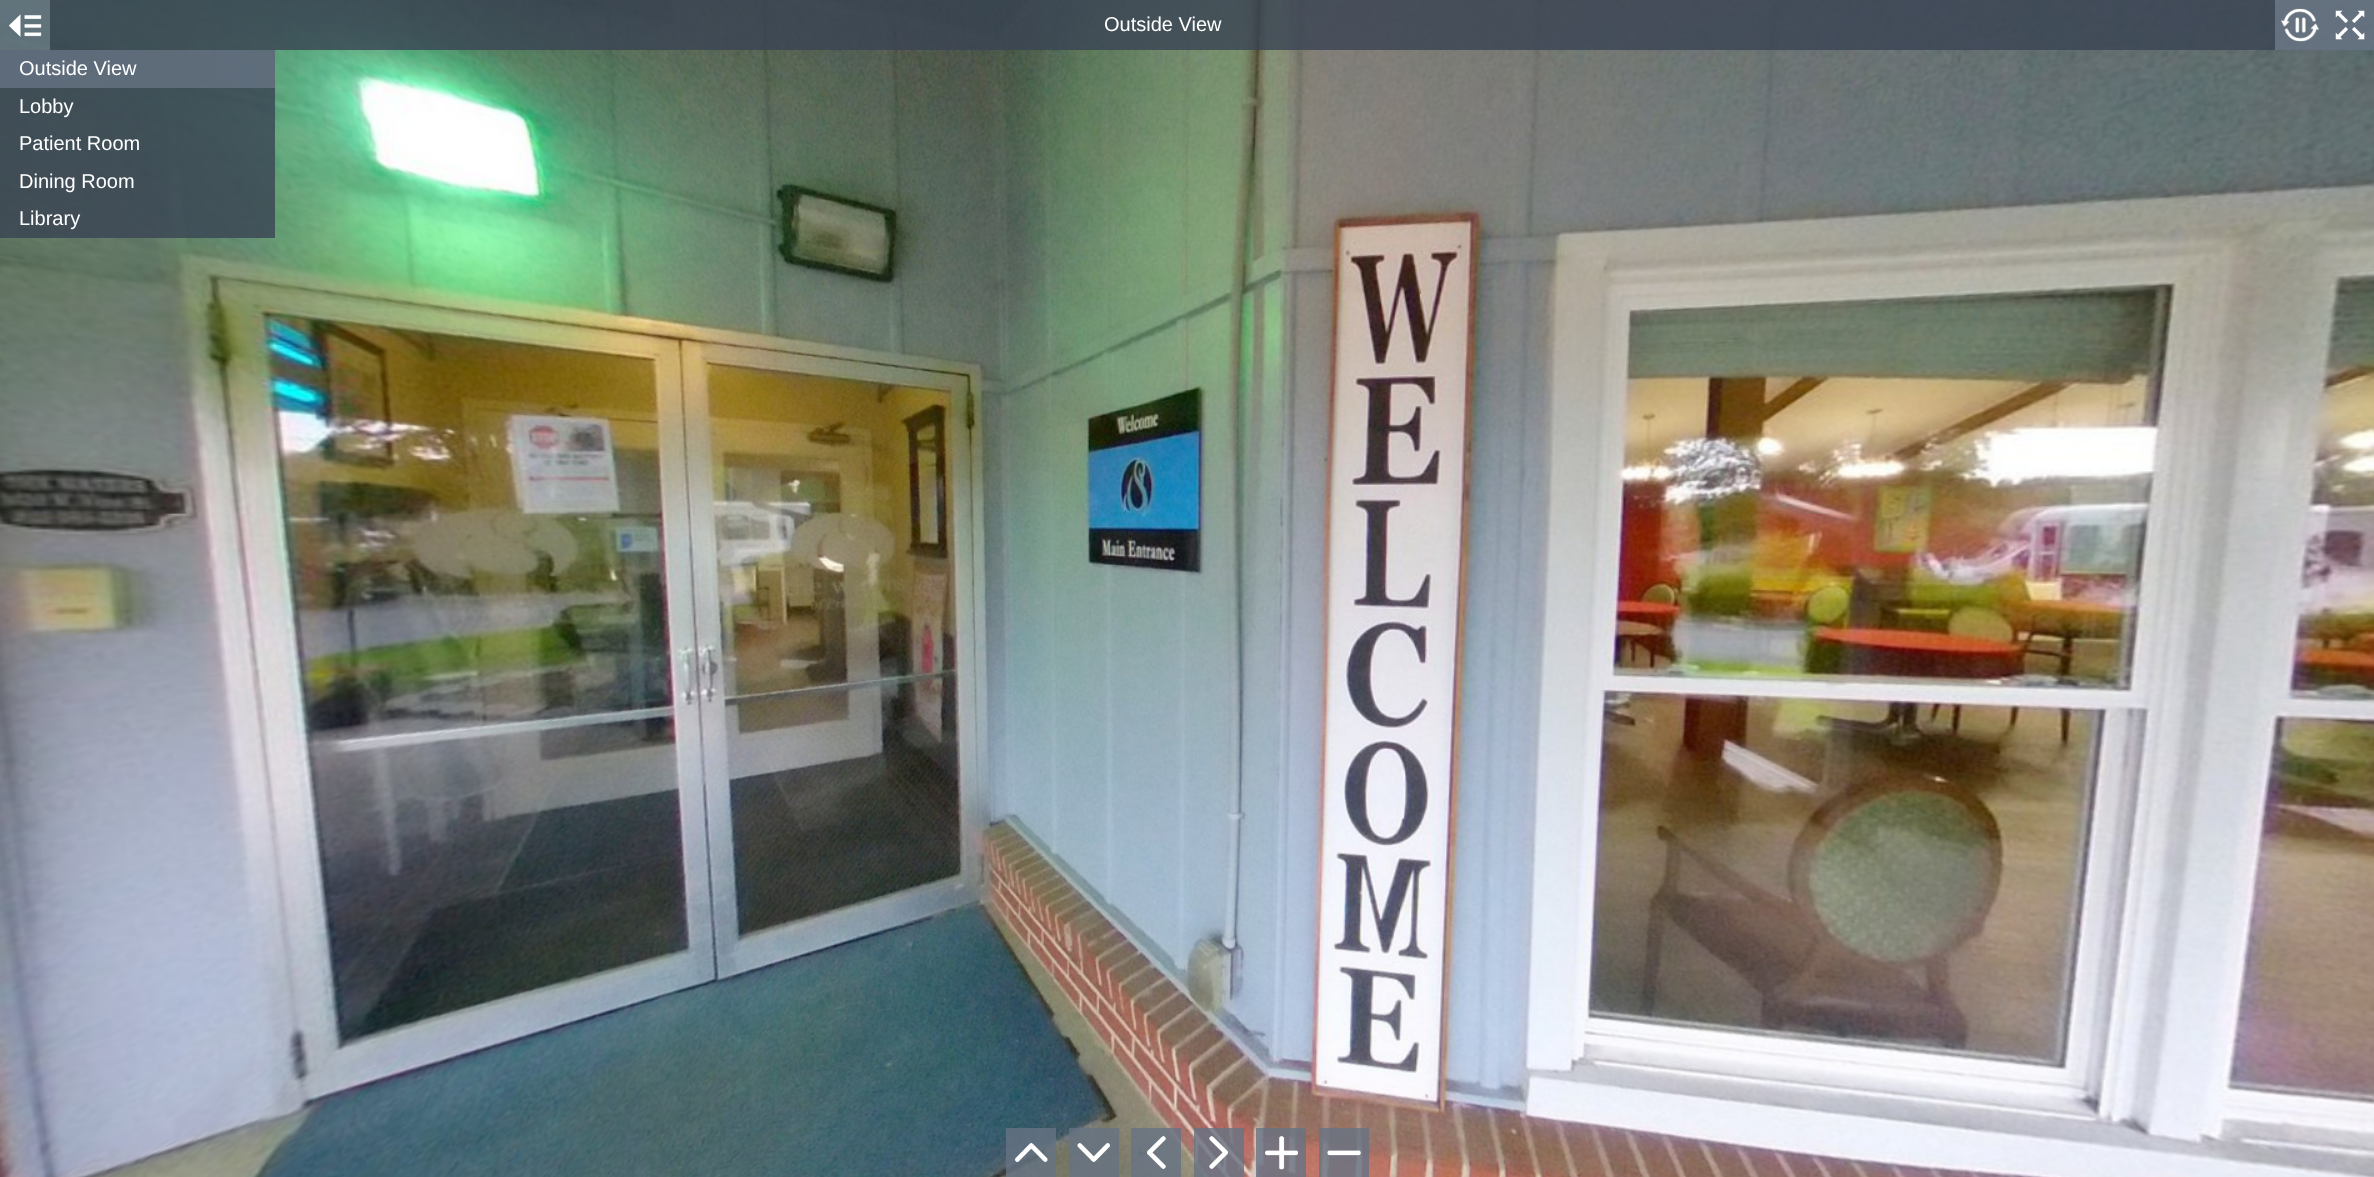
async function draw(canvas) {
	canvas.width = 2374;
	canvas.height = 1177;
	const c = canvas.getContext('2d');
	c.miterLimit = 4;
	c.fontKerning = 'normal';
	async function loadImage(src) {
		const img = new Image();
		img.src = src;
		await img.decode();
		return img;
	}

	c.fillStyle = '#fff';
	c.fillRect(0, 0, 2374, 1177);
	c.drawImage(await loadImage('img1.png'), 0, 0, 2374, 1177);
	c.fillStyle = '#677383cc';
	c.fillRect(0, 0, 50, 50);
	c.drawImage(await loadImage('img2.png'), 8, 14, 34, 23);
	c.fillStyle = '#3a4454cc';
	c.fillRect(50, 0, 2225, 50);
	c.font = '20px Liberation Sans';
	c.fillStyle = '#fff';
	c.fillText('Outside View', 1104, 31);
	c.fillStyle = '#677383cc';
	c.fillRect(2275, 0, 50, 50);
	c.drawImage(await loadImage('img3.png'), 2281, 8, 38, 34);
	c.fillRect(2325, 0, 49, 50);
	c.drawImage(await loadImage('img4.png'), 2335, 10, 30, 30);
	c.fillStyle = '#3a4454cc';
	c.fillRect(0, 50, 275, 188);
	c.fillStyle = '#677383cc';
	c.fillRect(0, 50, 275, 38);
	c.fillStyle = '#fff';
	for (const [text, x, y] of [
		['Outside View', 19, 75],
		['Lobby', 19, 113],
		['Patient Room', 19, 150],
		['Dining Room', 19, 188],
		['Library', 19, 225],
	]) {
		c.fillText(text, x, y);
	}
	c.fillStyle = '#677383cc';
	c.fillRect(1006, 1128, 50, 49);
	c.drawImage(await loadImage('img5.png'), 1015, 1143, 33, 19);
	c.fillRect(1069, 1128, 50, 49);
	c.drawImage(await loadImage('img6.png'), 1077, 1143, 33, 19);
	c.fillRect(1131, 1128, 50, 49);
	c.drawImage(await loadImage('img7.png'), 1147, 1136, 19, 33);
	c.fillRect(1194, 1128, 50, 49);
	c.drawImage(await loadImage('img8.png'), 1209, 1136, 19, 33);
	c.fillRect(1256, 1128, 50, 49);
	c.drawImage(await loadImage('img9.png'), 1265, 1136, 33, 34);
	c.fillRect(1319, 1128, 50, 49);
	c.drawImage(await loadImage('img10.png'), 1327, 1150, 34, 6);
}

draw(document.querySelector('canvas'));
